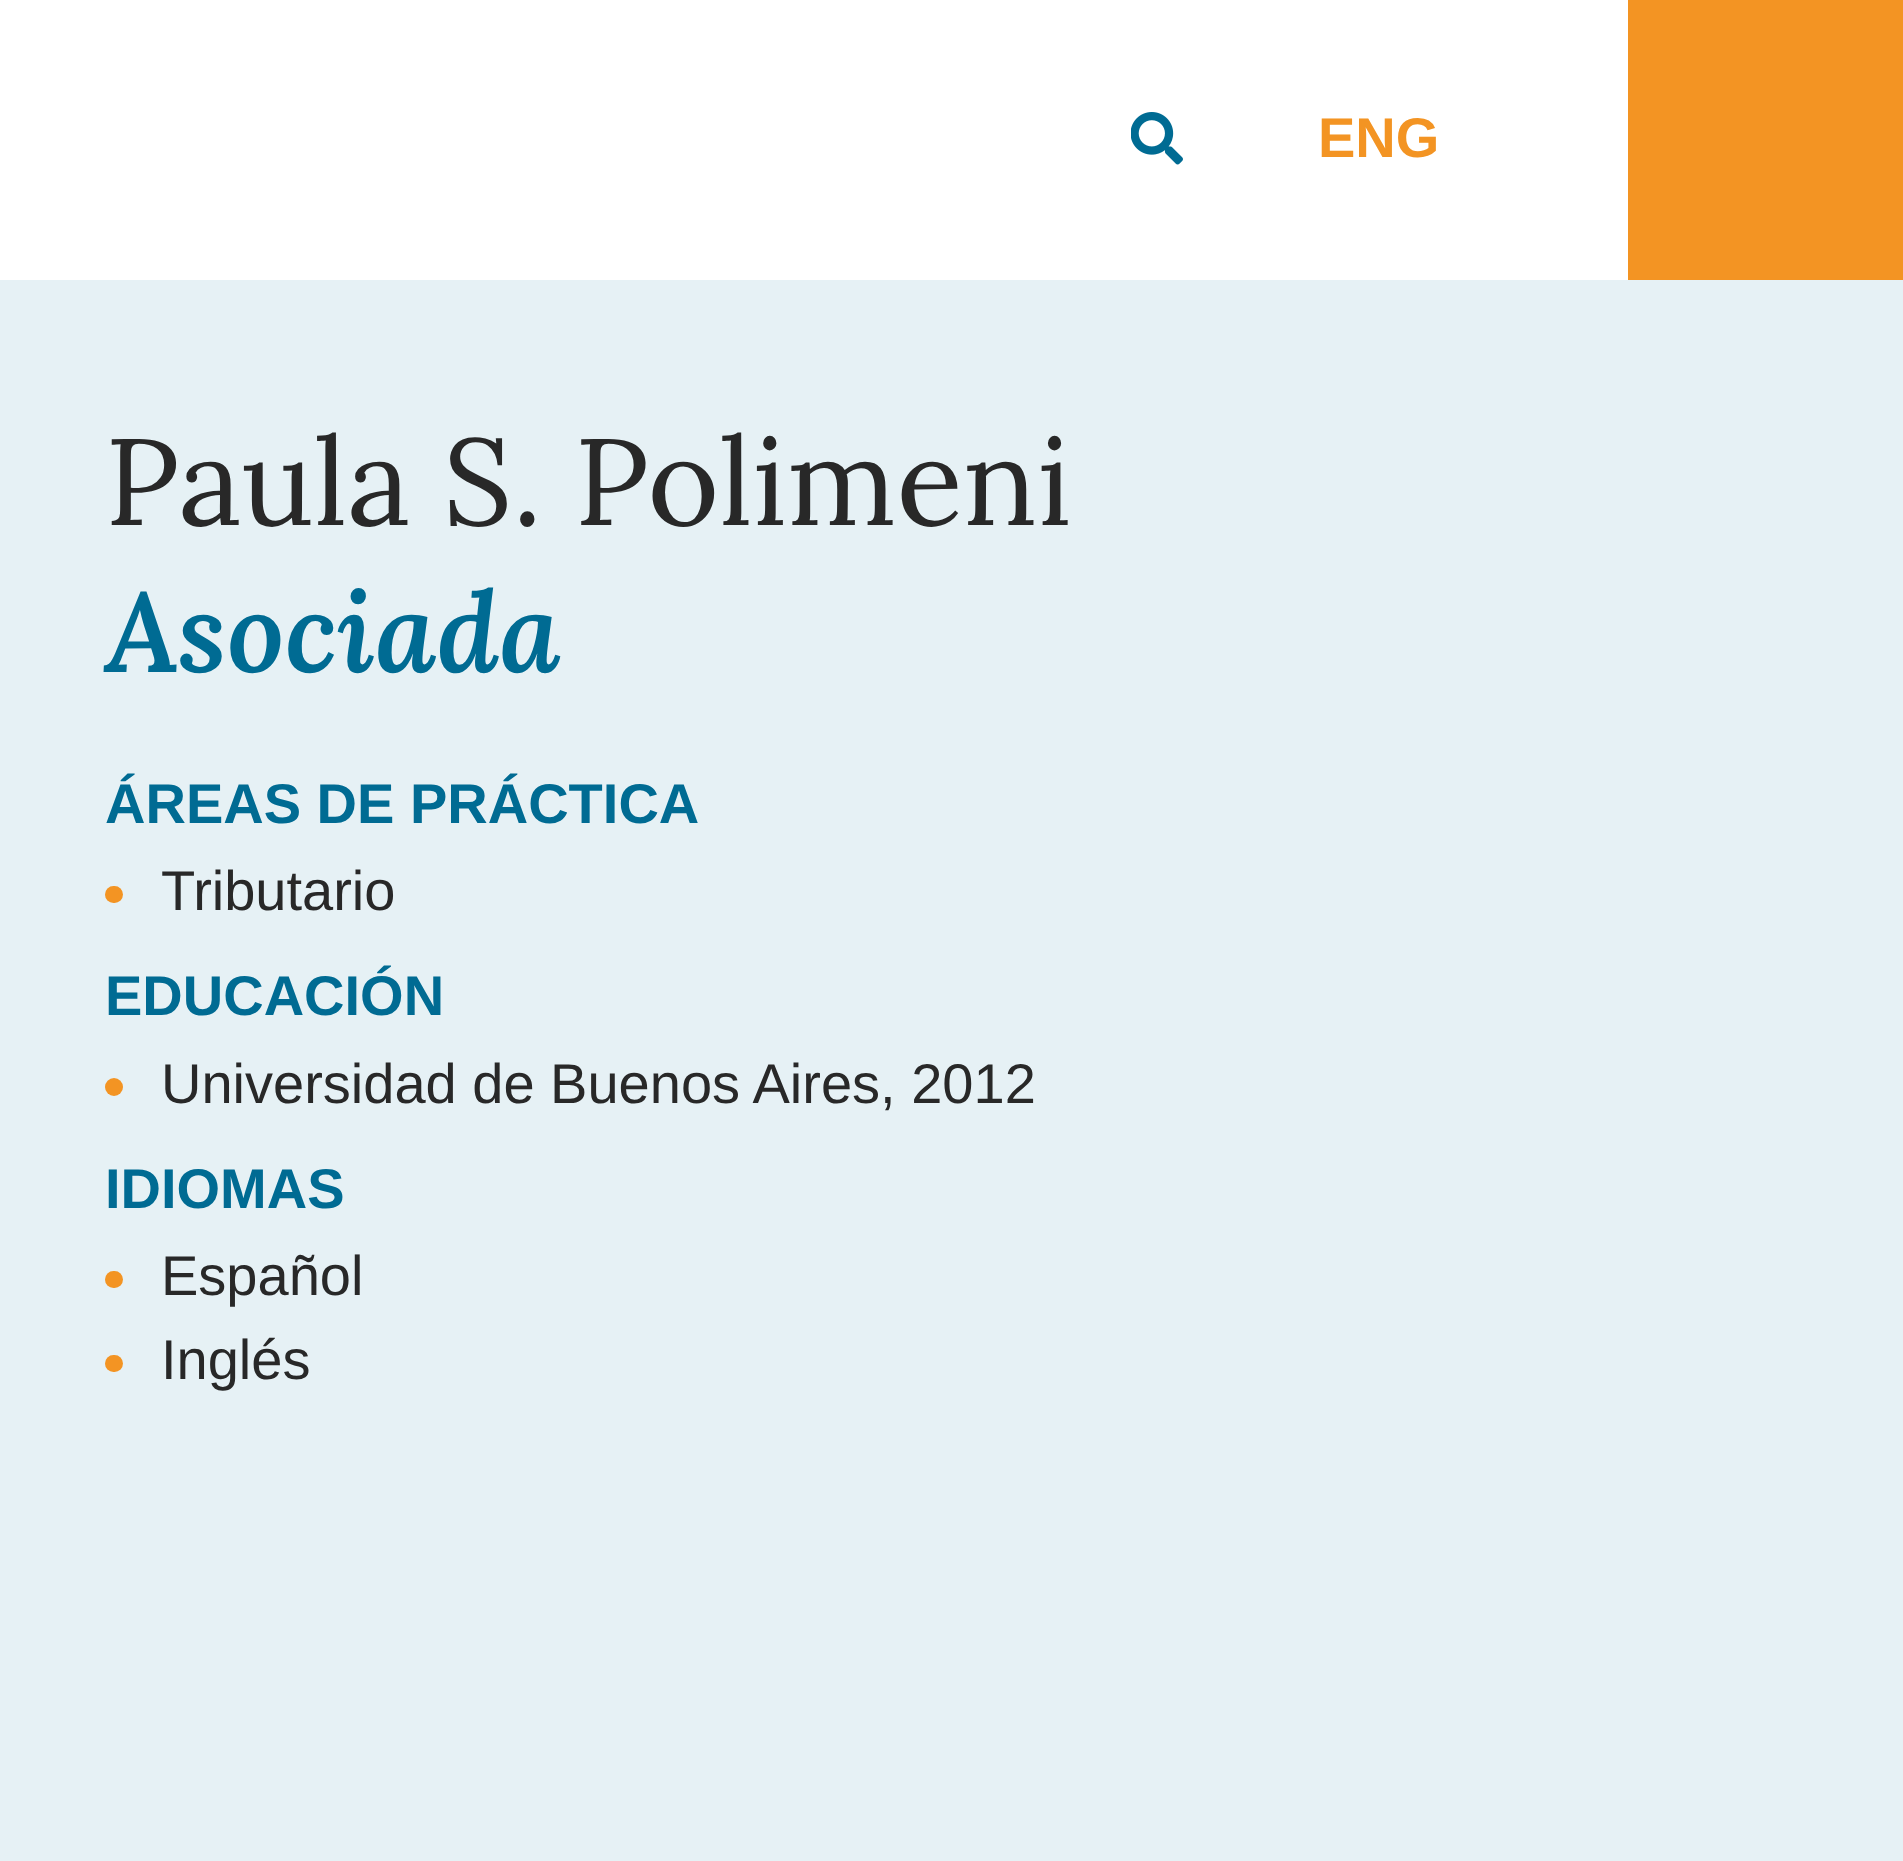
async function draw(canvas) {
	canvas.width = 1903;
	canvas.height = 1861;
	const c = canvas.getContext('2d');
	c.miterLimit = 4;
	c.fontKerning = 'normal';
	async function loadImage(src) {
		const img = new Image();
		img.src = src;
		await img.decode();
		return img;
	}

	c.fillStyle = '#fff';
	c.fillRect(0, 0, 1903, 1861);
	c.drawImage(await loadImage('img1.png'), 1131, 112, 52, 53);
	c.font = 'bold 56px Liberation Sans';
	c.fillStyle = '#f39423';
	c.fillText('ENG', 1318, 157);
	c.fillRect(1628, 0, 275, 280);
	c.fillStyle = '#e6f1f5';
	c.fillRect(0, 280, 1903, 1581);
	c.font = '122.5px Lora';
	c.fillStyle = '#282828';
	c.fillText('Paula S. Polimeni', 105, 525);
	c.font = 'italic 600 112px Lora';
	c.fillStyle = '#006b93';
	c.fillText('Asociada', 105, 672);
	c.font = 'bold 56px Liberation Sans';
	c.fillText('ÁREAS DE PRÁCTICA', 105, 823);
	c.fillStyle = '#f39423';
	c.beginPath();
	c.roundRect(105, 886, 18, 17, 8.5);
	c.fill();
	c.font = '56px Liberation Sans';
	c.fillStyle = '#282828';
	c.fillText('Tributario', 161, 910);
	c.font = 'bold 56px Liberation Sans';
	c.fillStyle = '#006b93';
	c.fillText('EDUCACIÓN', 105, 1015);
	c.fillStyle = '#f39423';
	c.beginPath();
	c.arc(114, 1087, 9, 0, 2 * Math.PI);
	c.fill();
	c.font = '56px Liberation Sans';
	c.fillStyle = '#282828';
	c.fillText('Universidad de Buenos Aires, 2012', 161, 1103);
	c.font = 'bold 56px Liberation Sans';
	c.fillStyle = '#006b93';
	c.fillText('IDIOMAS', 105, 1208);
	c.fillStyle = '#f39423';
	c.beginPath();
	c.roundRect(105, 1271, 18, 17, 8.5);
	c.fill();
	c.font = '56px Liberation Sans';
	c.fillStyle = '#282828';
	c.fillText('Español', 161, 1295);
	c.fillStyle = '#f39423';
	c.beginPath();
	c.roundRect(105, 1355, 18, 17, 8.5);
	c.fill();
	c.fillStyle = '#282828';
	c.fillText('Inglés', 161, 1379);
}

draw(document.querySelector('canvas'));
